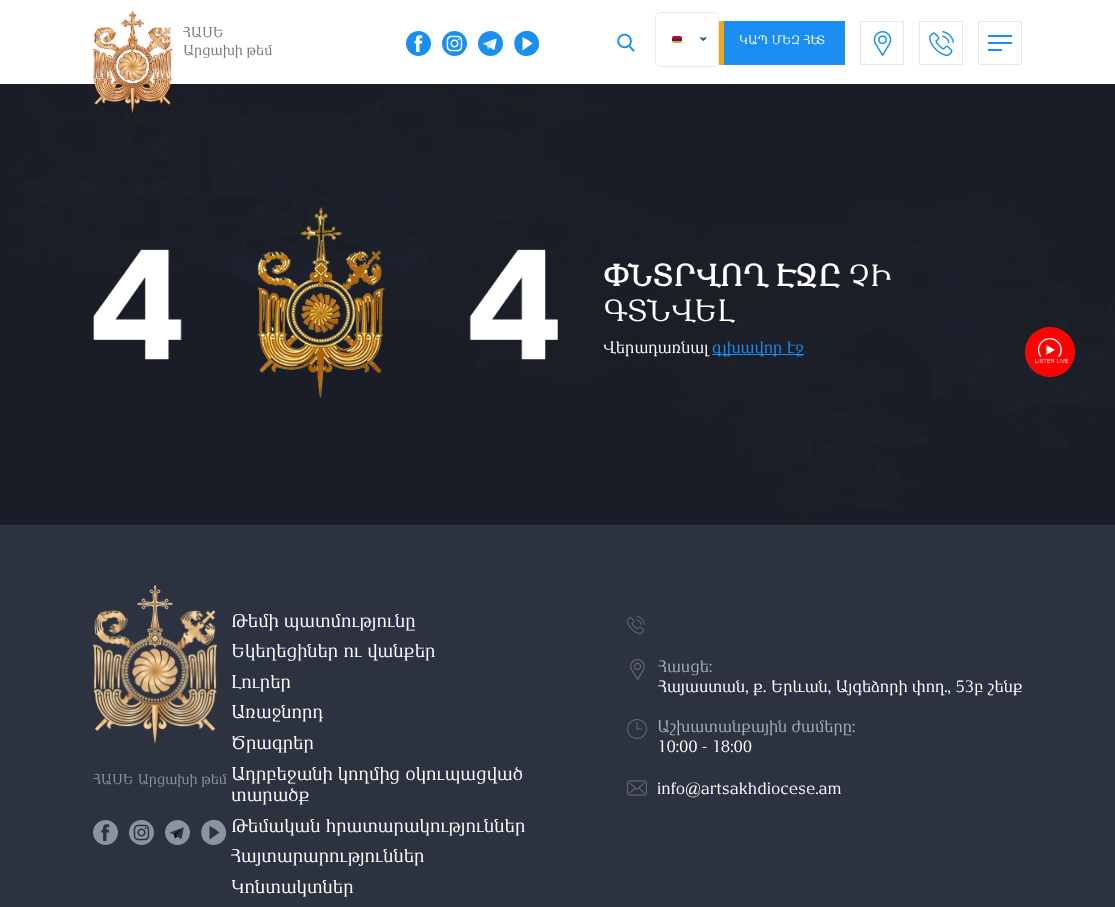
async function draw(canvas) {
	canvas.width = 1115;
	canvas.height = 907;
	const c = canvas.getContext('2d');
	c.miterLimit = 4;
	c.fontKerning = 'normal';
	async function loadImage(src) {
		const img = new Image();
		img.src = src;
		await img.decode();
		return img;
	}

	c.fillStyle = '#fff';
	c.fillRect(0, 0, 1115, 907);
	c.drawImage(await loadImage('img9.png'), 0, 84, 1115, 441);
	c.drawImage(await loadImage('img1.png'), 92, 11, 81, 102);
	c.font = '14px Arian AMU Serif';
	c.fillStyle = '#777';
	c.fillText('ՀԱՍԵ', 183, 37);
	c.fillText('Արցախի թեմ', 183, 55);
	c.drawImage(await loadImage('img2.png'), 406, 31, 25, 25);
	c.drawImage(await loadImage('img3.png'), 442, 31, 25, 25);
	c.drawImage(await loadImage('img4.png'), 478, 31, 25, 25);
	c.save();
	c.beginPath();
	c.rect(514, 31, 25, 25);
	c.clip();
	c.fillStyle = '#1a8ef1';
	c.beginPath();
	c.moveTo(523, 31.5);
	c.bezierCurveTo(509.5, 36, 512.5, 55.5, 526, 56);
	c.lineTo(530, 55.5);
	c.bezierCurveTo(546.5, 50.5, 538.5, 26.5, 523, 31.5);
	c.closePath();
	c.moveTo(528, 40);
	c.lineTo(532.5, 43.5);
	c.lineTo(522.5, 50.5);
	c.lineTo(522.5, 37);
	c.closePath();
	c.fill();
	c.restore();
	c.drawImage(await loadImage('img5.png'), 617, 33, 18, 19);
	c.beginPath();
	c.roundRect(655.5, 12.5, 63, 54, 4.5);
	c.strokeStyle = '#e8ebee';
	c.stroke();
	c.fillStyle = '#d90012';
	c.beginPath();
	c.roundRect(672, 36, 10, 3, [2, 2, 0, 0]);
	c.fill();
	c.fillStyle = '#0033a0';
	c.fillRect(672, 39, 10, 2);
	c.fillStyle = '#f2a800';
	c.beginPath();
	c.roundRect(672, 41, 10, 2, [0, 0, 2, 2]);
	c.fill();
	c.drawImage(await loadImage('img6.png'), 700, 37, 7, 4);
	c.fillStyle = '#1a8ef1';
	c.fillRect(724, 21, 121, 44);
	c.fillStyle = '#f2a71a';
	c.fillRect(719, 21, 5, 44);
	c.font = '12px Arian AMU Serif';
	c.fillStyle = '#fff';
	c.fillText('ԿԱՊ ՄԵԶ ՀԵՏ', 739, 44);
	c.strokeStyle = '#e7e8ec';
	c.strokeRect(860.5, 21.5, 43, 43);
	c.drawImage(await loadImage('img7.png'), 873, 31, 19, 25);
	c.strokeRect(919.5, 21.5, 43, 43);
	c.drawImage(await loadImage('img8.png'), 929, 31, 25, 25);
	c.strokeRect(978.5, 21.5, 43, 43);
	for (const [x, y, w, h, color] of [
		[988, 35, 24, 2, '#1a8ef1'],
		[988, 42, 24, 2, '#1a8ef1'],
		[988, 49, 14, 2, '#1a8ef1'],
	]) {
		c.fillStyle = color;
		c.fillRect(x, y, w, h);
	}
	c.drawImage(await loadImage('img10.png'), 93, 207, 465, 191);
	c.font = 'bold 30px Arian AMU Serif';
	c.fillStyle = '#fff';
	c.fillText('ՓՆՏՐՎՈՂ ԷՋԸ', 603, 286);
	c.font = '30px Arian AMU Serif';
	c.fillText('ՉԻ', 849, 286);
	c.fillText('ԳՏՆՎԵԼ', 603, 321);
	c.font = '16px Arian AMU Serif';
	c.fillText('Վերադառնալ', 603, 353);
	c.fillStyle = '#1a8ef1';
	c.fillRect(712, 354, 92, 1);
	c.fillText('գլխավոր էջ', 712, 353);
	c.fillStyle = '#2d3240';
	c.fillRect(0, 525, 1115, 382);
	c.drawImage(await loadImage('img11.png'), 93, 585, 124, 159);
	c.font = '14px Arian AMU Serif';
	c.fillStyle = '#8d929f';
	c.fillText('ՀԱՍԵ Արցախի թեմ', 93, 784);
	c.drawImage(await loadImage('img12.png'), 93, 820, 25, 25);
	c.drawImage(await loadImage('img13.png'), 129, 820, 25, 25);
	c.drawImage(await loadImage('img14.png'), 165, 820, 25, 25);
	c.save();
	c.beginPath();
	c.rect(201, 820, 25, 25);
	c.clip();
	c.beginPath();
	c.moveTo(210, 820.5);
	c.bezierCurveTo(196.5, 825, 199.5, 844.5, 213, 845);
	c.lineTo(217, 844.5);
	c.bezierCurveTo(233.5, 839.5, 225.5, 815.5, 210, 820.5);
	c.closePath();
	c.moveTo(215, 829);
	c.lineTo(219.5, 832.5);
	c.lineTo(209.5, 839.5);
	c.lineTo(209.5, 826);
	c.closePath();
	c.fill();
	c.restore();
	c.font = '18px Arian AMU Serif';
	c.fillStyle = '#fff';
	for (const [text, x, y] of [
		['Թեմի պատմությունը', 231, 627],
		['Եկեղեցիներ ու վանքեր', 231, 657],
		['Լուրեր', 231, 688],
		['Առաջնորդ', 231, 718],
		['Ծրագրեր', 231, 749],
		['Ադրբեջանի կողմից օկուպացված', 231, 780],
		['տարածք', 231, 801],
		['Թեմական հրատարակություններ', 231, 832],
		['Հայտարարություններ', 231, 862],
		['Կոնտակտներ', 231, 893],
	]) {
		c.fillText(text, x, y);
	}
	c.drawImage(await loadImage('img15.png'), 627, 616, 18, 18);
	c.drawImage(await loadImage('img16.png'), 630, 659, 15, 21);
	c.font = '16px Arian AMU Serif';
	c.fillStyle = '#a8adb9';
	c.fillText('Հասցե:', 658, 672);
	c.fillStyle = '#fff';
	c.fillText('Հայաստան, ք. Երևան, Այգեձորի փող., 53բ շենք', 658, 692);
	c.drawImage(await loadImage('img17.png'), 627, 719, 20, 20);
	c.fillStyle = '#a8adb9';
	c.fillText('Աշխատանքային ժամերը:', 657, 732);
	c.fillStyle = '#fff';
	c.fillText('10:00 - 18:00', 657, 752);
	c.drawImage(await loadImage('img18.png'), 627, 780, 20, 16);
	c.fillText('info@artsakhdiocese.am', 657, 794);
	c.fillStyle = '#e8210f';
	c.beginPath();
	c.arc(1050, 352, 25, 0, 2 * Math.PI);
	c.fill();
	c.drawImage(await loadImage('img19.png'), 1025, 327, 50, 50);
}

draw(document.querySelector('canvas'));
